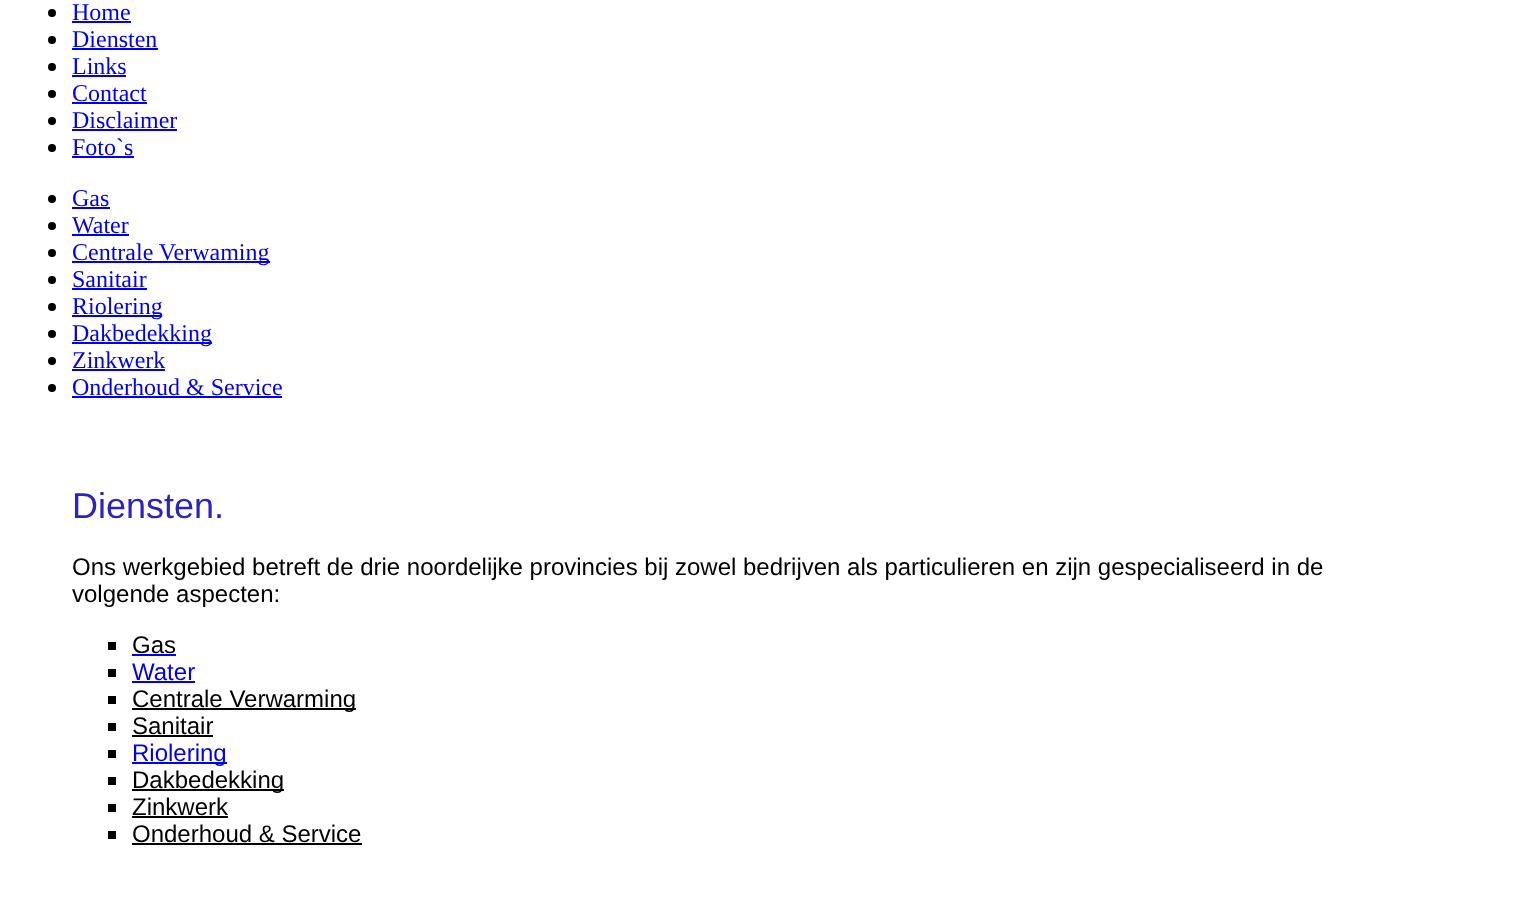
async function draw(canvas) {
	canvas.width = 1534;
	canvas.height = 920;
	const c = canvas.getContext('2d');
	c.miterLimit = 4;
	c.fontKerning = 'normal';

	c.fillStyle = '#fff';
	c.fillRect(0, 0, 1534, 920);
	c.fillStyle = '#000';
	c.beginPath();
	c.arc(52, 13, 4, 0, 2 * Math.PI);
	c.fill();
	c.font = '24px Liberation Serif';
	c.fillStyle = '#00e';
	c.fillText('Home', 72, 20);
	c.fillRect(72, 21, 59, 2);
	c.fillStyle = '#000';
	c.beginPath();
	c.arc(52, 40, 4, 0, 2 * Math.PI);
	c.fill();
	c.fillStyle = '#00e';
	c.fillText('Diensten', 72, 47);
	c.fillRect(72, 48, 86, 2);
	c.fillStyle = '#000';
	c.beginPath();
	c.arc(52, 67, 4, 0, 2 * Math.PI);
	c.fill();
	c.fillStyle = '#00e';
	c.fillText('Links', 72, 74);
	c.fillRect(72, 75, 54, 2);
	c.fillStyle = '#000';
	c.beginPath();
	c.arc(52, 94, 4, 0, 2 * Math.PI);
	c.fill();
	c.fillStyle = '#00e';
	c.fillText('Contact', 72, 101);
	c.fillRect(72, 102, 75, 2);
	c.fillStyle = '#000';
	c.beginPath();
	c.arc(52, 121, 4, 0, 2 * Math.PI);
	c.fill();
	c.fillStyle = '#00e';
	c.fillText('Disclaimer', 72, 128);
	c.fillRect(72, 129, 105, 2);
	c.fillStyle = '#000';
	c.beginPath();
	c.arc(52, 148, 4, 0, 2 * Math.PI);
	c.fill();
	c.fillStyle = '#00e';
	c.fillText('Foto`s', 72, 155);
	c.fillRect(72, 156, 62, 2);
	c.fillStyle = '#000';
	c.beginPath();
	c.arc(52, 199, 4, 0, 2 * Math.PI);
	c.fill();
	c.fillStyle = '#00e';
	c.fillText('Gas', 72, 206);
	c.fillRect(72, 207, 38, 2);
	c.fillStyle = '#000';
	c.beginPath();
	c.arc(52, 226, 4, 0, 2 * Math.PI);
	c.fill();
	c.fillStyle = '#00e';
	c.fillText('Water', 72, 233);
	c.fillRect(72, 234, 57, 2);
	c.fillStyle = '#000';
	c.beginPath();
	c.arc(52, 253, 4, 0, 2 * Math.PI);
	c.fill();
	c.fillStyle = '#00e';
	c.fillRect(72, 261, 198, 2);
	c.fillText('Centrale Verwaming', 72, 260);
	c.fillStyle = '#000';
	c.beginPath();
	c.arc(52, 280, 4, 0, 2 * Math.PI);
	c.fill();
	c.fillStyle = '#00e';
	c.fillText('Sanitair', 72, 287);
	c.fillRect(72, 288, 75, 2);
	c.fillStyle = '#000';
	c.beginPath();
	c.arc(52, 307, 4, 0, 2 * Math.PI);
	c.fill();
	c.fillStyle = '#00e';
	c.fillRect(72, 315, 90, 2);
	c.fillText('Riolering', 72, 314);
	c.fillStyle = '#000';
	c.beginPath();
	c.arc(52, 334, 4, 0, 2 * Math.PI);
	c.fill();
	c.fillStyle = '#00e';
	c.fillRect(72, 342, 140, 2);
	c.fillText('Dakbedekking', 72, 341);
	c.fillStyle = '#000';
	c.beginPath();
	c.arc(52, 361, 4, 0, 2 * Math.PI);
	c.fill();
	c.fillStyle = '#00e';
	c.fillText('Zinkwerk', 72, 368);
	c.fillRect(72, 369, 93, 2);
	c.fillStyle = '#000';
	c.beginPath();
	c.arc(52, 388, 4, 0, 2 * Math.PI);
	c.fill();
	c.fillStyle = '#00e';
	c.fillText('Onderhoud & Service', 72, 395);
	c.fillRect(72, 396, 210, 2);
	c.font = '36px Liberation Sans';
	c.fillStyle = '#2b22c2';
	c.fillText('Diensten.', 72, 518);
	c.font = '24px Liberation Sans';
	c.fillStyle = '#000';
	c.fillText('Ons werkgebied betreft de drie noordelijke provincies bij zowel bedrijven als particulieren en zijn gespecialiseerd in de', 72, 575);
	c.fillText('volgende aspecten:', 72, 602);
	c.fillRect(108, 642, 8, 8);
	c.fillText('Gas', 132, 653);
	c.fillStyle = '#00e';
	c.fillRect(132, 654, 44, 2);
	c.fillStyle = '#000';
	c.fillRect(108, 669, 8, 8);
	c.fillStyle = '#00e';
	c.fillText('Water', 132, 680);
	for (const [x, y, w, h, color] of [
		[132, 681, 63, 2, '#00e'],
		[108, 696, 8, 8, '#000'],
		[132, 708, 224, 2, '#000'],
	]) {
		c.fillStyle = color;
		c.fillRect(x, y, w, h);
	}
	c.fillText('Centrale Verwarming', 132, 707);
	c.fillRect(108, 723, 8, 8);
	c.fillText('Sanitair', 132, 734);
	for (const [x, y, w, h, color] of [
		[132, 735, 81, 2, '#000'],
		[108, 750, 8, 8, '#000'],
		[132, 762, 95, 2, '#00e'],
	]) {
		c.fillStyle = color;
		c.fillRect(x, y, w, h);
	}
	c.fillText('Riolering', 132, 761);
	c.fillStyle = '#000';
	c.fillRect(108, 777, 8, 8);
	c.fillRect(132, 789, 152, 2);
	c.fillText('Dakbedekking', 132, 788);
	c.fillRect(108, 804, 8, 8);
	c.fillText('Zinkwerk', 132, 815);
	c.fillRect(132, 816, 96, 2);
	c.fillRect(108, 831, 8, 8);
	c.fillText('Onderhoud & Service', 132, 842);
	c.fillRect(132, 843, 230, 2);
}

draw(document.querySelector('canvas'));
